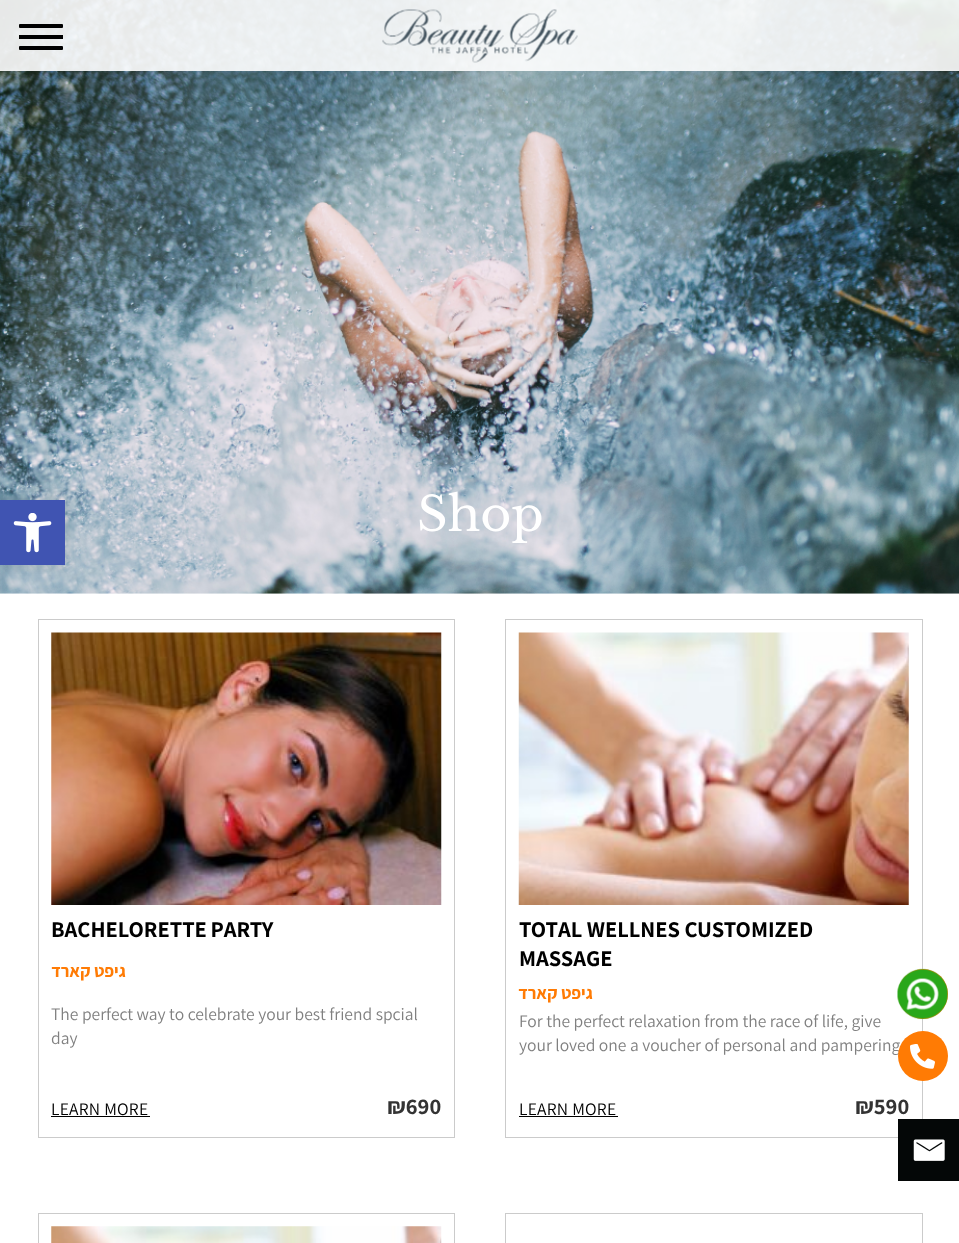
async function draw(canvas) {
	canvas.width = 959;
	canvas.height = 1243;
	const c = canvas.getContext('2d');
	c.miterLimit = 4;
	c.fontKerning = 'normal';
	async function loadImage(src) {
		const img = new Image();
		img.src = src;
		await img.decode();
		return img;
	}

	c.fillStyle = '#fff';
	c.fillRect(0, 0, 959, 1243);
	c.drawImage(await loadImage('img3.png'), 0, 0, 959, 594);
	c.fillStyle = '#0000001a';
	c.filter = 'blur(6px)';
	c.beginPath();
	c.rect(0, 500, 65, 65);
	c.fill();
	c.filter = 'none';
	c.fillStyle = '#4054b2';
	c.fillRect(0, 500, 65, 65);
	c.drawImage(await loadImage('img1.png'), 13, 513, 39, 40);
	c.fillStyle = '#ffffffe6';
	c.fillRect(0, 0, 959, 71);
	c.fillStyle = '#000';
	c.fillRect(19, 35, 44, 4);
	c.beginPath();
	c.roundRect(19, 24, 44, 4, 1);
	c.fill();
	c.beginPath();
	c.roundRect(19, 46, 44, 4, 1);
	c.fill();
	c.drawImage(await loadImage('img2.png'), 382, 9, 196, 54);
	c.font = '47.5px Libre Baskerville';
	c.fillStyle = '#fff';
	c.fillText('Shop', 417, 531);
	c.strokeStyle = '#cbcbcb';
	c.strokeRect(38.5, 619.5, 416, 518);
	c.drawImage(await loadImage('img4.png'), 51, 632, 391, 273);
	c.wordSpacing = '-1px';
	c.font = 'bold 22.5px Assistant';
	c.fillStyle = '#000';
	c.fillText('BACHELORETTE PARTY', 51, 937);
	c.wordSpacing = '0px';
	c.direction = 'rtl';
	c.font = 'bold 17.5px Assistant';
	c.fillStyle = '#ff7b04';
	c.fillText('גיפט קארד', 126, 977);
	c.direction = 'ltr';
	c.font = '17.5px Assistant';
	c.fillStyle = '#808080';
	c.fillText('The perfect way to celebrate your best friend spcial', 51, 1020);
	c.fillText('day', 51, 1044);
	c.letterSpacing = '0.25px';
	c.fillStyle = '#000';
	c.fillText('LEARN MORE', 51, 1115);
	c.fillRect(51, 1116, 99, 1);
	c.letterSpacing = '0px';
	c.font = 'bold 22.5px Assistant';
	c.fillStyle = '#333';
	c.fillText('₪690', 387, 1114);
	c.strokeRect(505.5, 619.5, 417, 518);
	c.drawImage(await loadImage('img5.png'), 518, 632, 391, 273);
	c.fillStyle = '#000';
	c.fillText('TOTAL WELLNES CUSTOMIZED', 519, 937);
	c.fillText('MASSAGE', 519, 966);
	c.direction = 'rtl';
	c.font = 'bold 17.5px Assistant';
	c.fillStyle = '#ff7b04';
	c.fillText('גיפט קארד', 593, 999);
	c.direction = 'ltr';
	c.font = '17.5px Assistant';
	c.fillStyle = '#808080';
	c.fillText('For the perfect relaxation from the race of life, give', 519, 1027);
	c.fillText('your loved one a voucher of personal and pampering', 519, 1051);
	c.letterSpacing = '0.25px';
	c.fillStyle = '#000';
	c.fillText('LEARN MORE', 519, 1115);
	c.fillRect(519, 1116, 99, 1);
	c.letterSpacing = '0px';
	c.font = 'bold 22.5px Assistant';
	c.fillStyle = '#333';
	c.fillText('₪590', 855, 1114);
	c.strokeRect(38.5, 1213.5, 416, 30);
	c.drawImage(await loadImage('img6.png'), 51, 1226, 391, 17);
	c.strokeRect(505.5, 1213.5, 417, 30);
	c.fillStyle = '#ff7b04';
	c.beginPath();
	c.arc(923, 994, 25, 0, 2 * Math.PI);
	c.fill();
	c.drawImage(await loadImage('img7.png'), 897, 968, 51, 52);
	c.beginPath();
	c.arc(923, 1056, 25, 0, 2 * Math.PI);
	c.fill();
	c.drawImage(await loadImage('img8.png'), 910, 1044, 25, 25);
	c.fillStyle = '#040707';
	c.fillRect(898, 1119, 61, 62);
	c.drawImage(await loadImage('img9.png'), 913, 1139, 32, 22);
}

draw(document.querySelector('canvas'));
